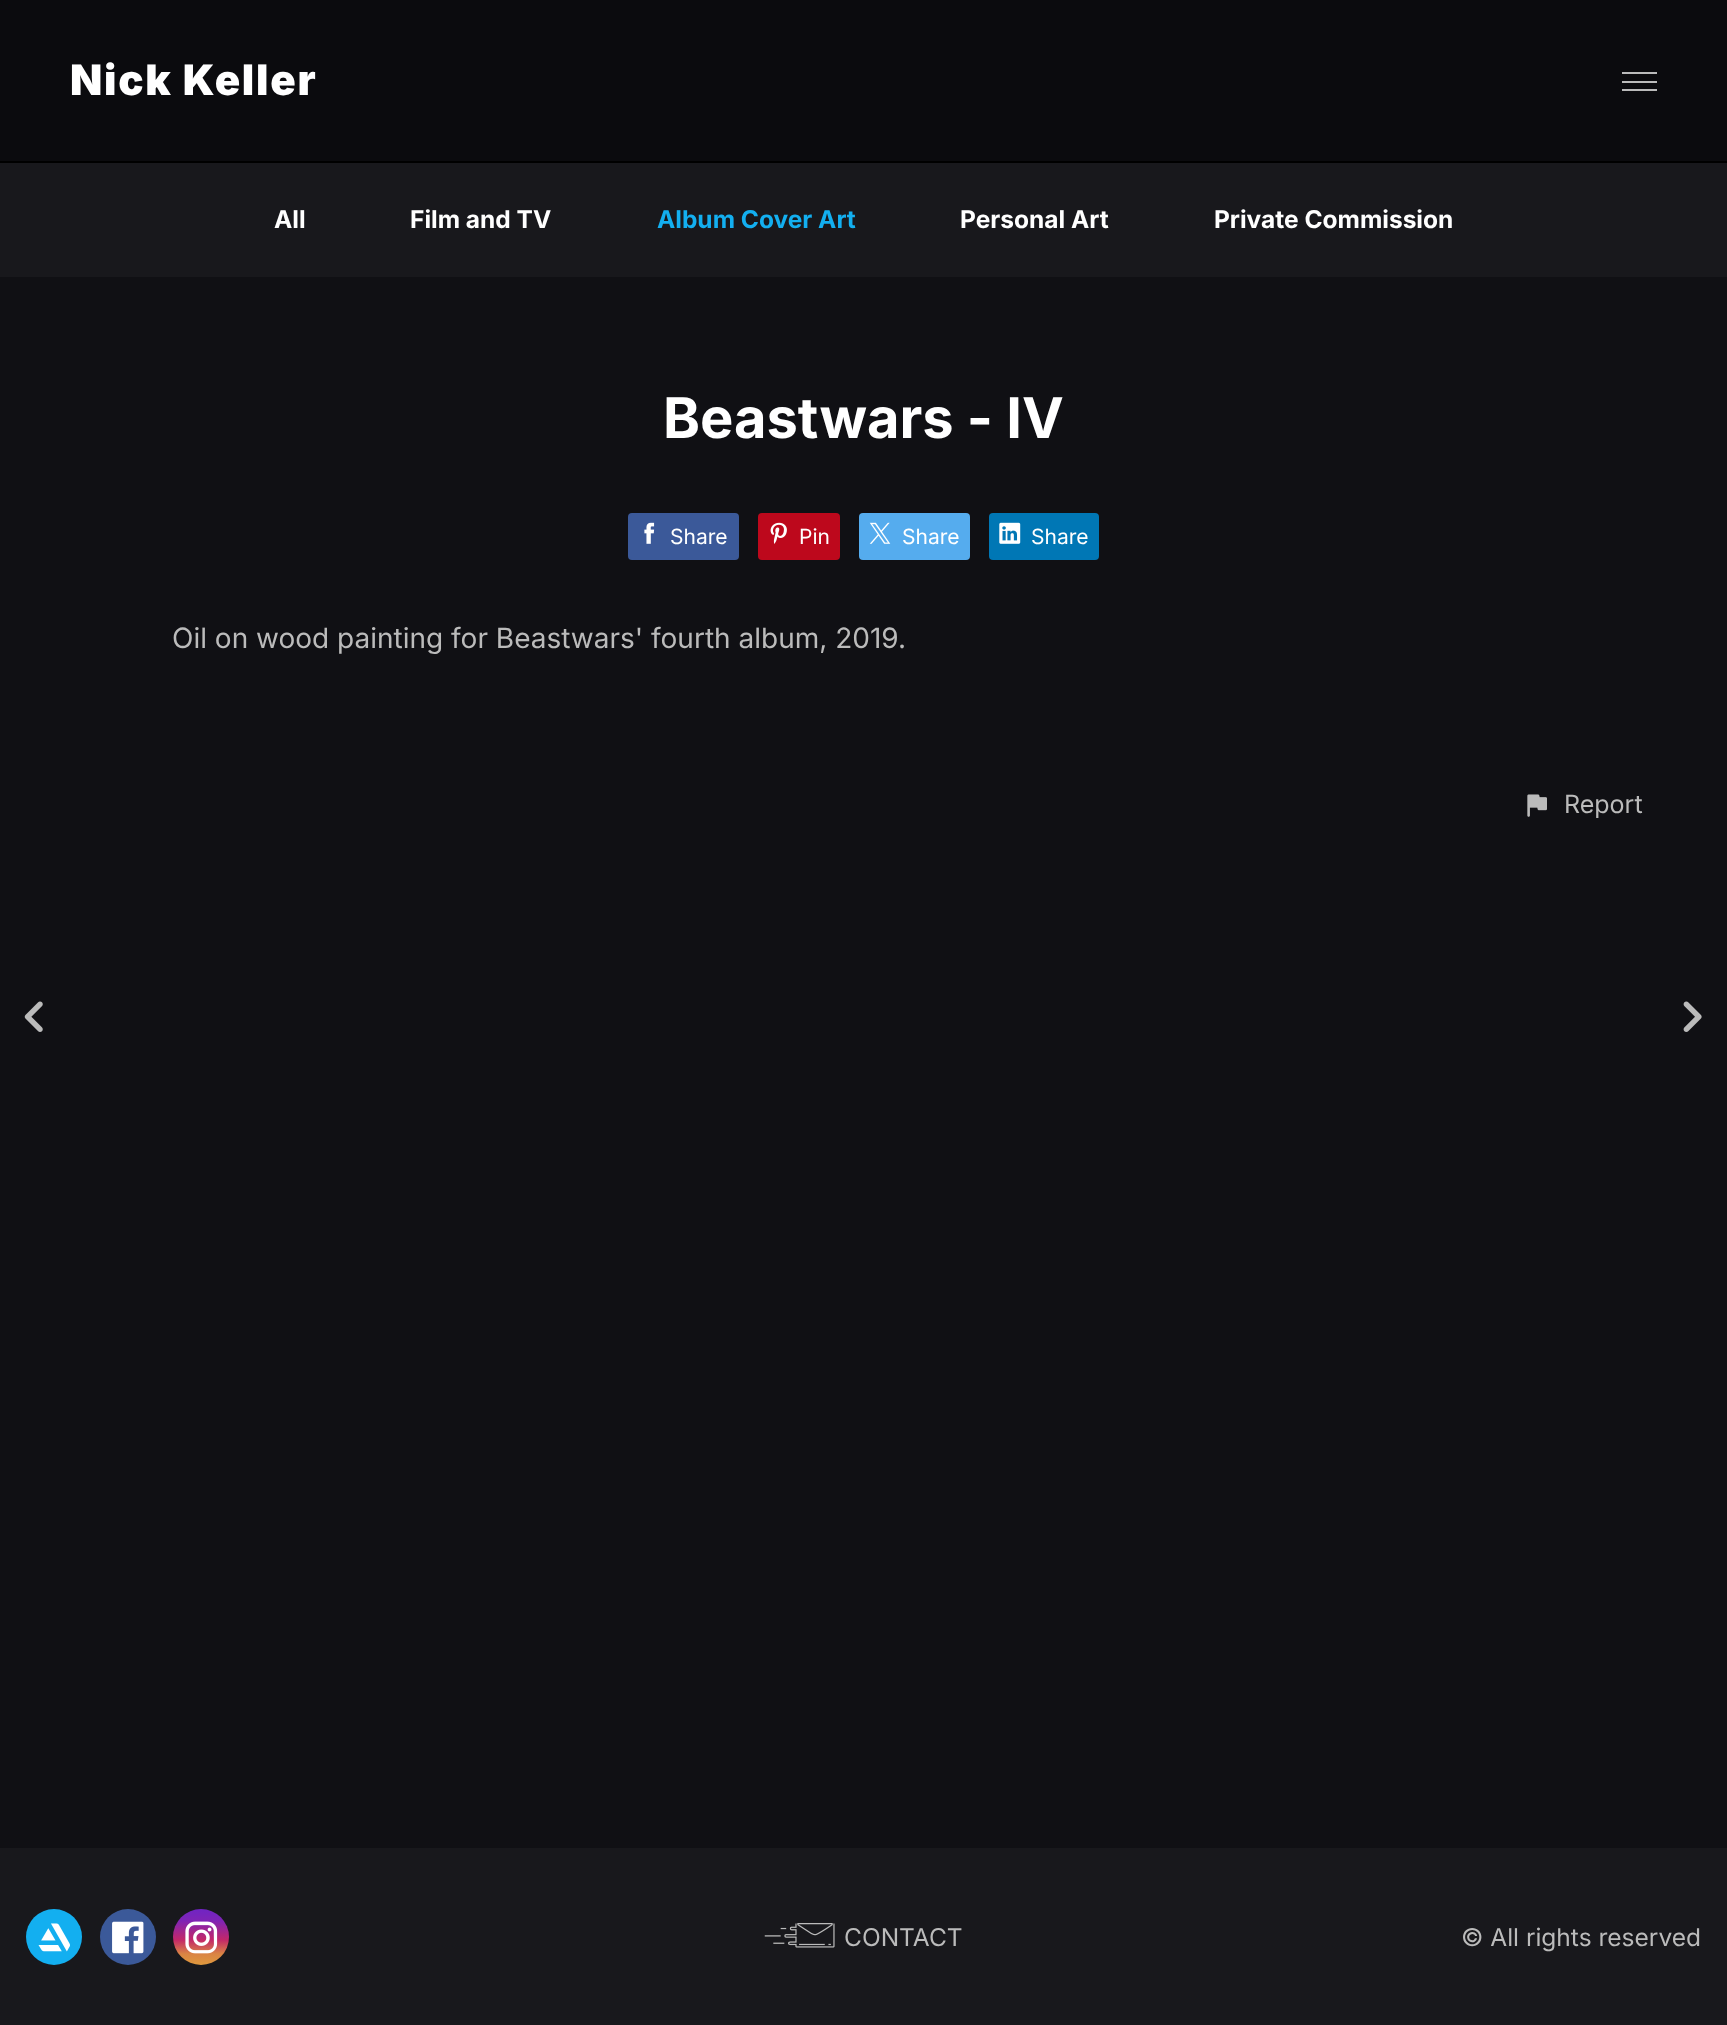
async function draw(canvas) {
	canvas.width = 1727;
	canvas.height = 2025;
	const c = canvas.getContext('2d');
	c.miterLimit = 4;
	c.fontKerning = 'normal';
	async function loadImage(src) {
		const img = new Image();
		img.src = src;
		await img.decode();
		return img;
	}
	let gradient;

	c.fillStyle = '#101014';
	c.fillRect(0, 0, 1727, 2025);
	c.fillStyle = '#0b0b0e';
	c.fillRect(0, 0, 1727, 161);
	c.fillStyle = '#000';
	c.fillRect(0, 161, 1727, 2);
	c.letterSpacing = '1.75px';
	c.font = '900 42px Inter';
	c.fillStyle = '#fff';
	c.fillText('Nick Keller', 70, 95);
	for (const [x, y, w, h, color] of [
		[1622, 72, 35, 2, '#bbb'],
		[1622, 81, 35, 2, '#bbb'],
		[1622, 89, 35, 2, '#bbb'],
		[0, 163, 1727, 114, '#18181c'],
	]) {
		c.fillStyle = color;
		c.fillRect(x, y, w, h);
	}
	c.letterSpacing = '0px';
	c.font = 'bold 24.5px Inter';
	c.fillStyle = '#fff';
	c.fillText('All', 274, 228);
	c.fillText('Film and TV', 410, 228);
	c.fillStyle = '#13aff0';
	c.fillText('Album Cover Art', 657, 228);
	c.fillStyle = '#fff';
	c.fillText('Personal Art', 960, 228);
	c.fillText('Private Commission', 1214, 228);
	c.font = 'bold 56px Inter';
	c.fillText('Beastwars - IV', 663, 438);
	c.fillStyle = '#3b5999';
	c.beginPath();
	c.roundRect(628, 513, 111, 47, 4);
	c.fill();
	c.drawImage(await loadImage('img1.png'), 644, 522, 11, 22);
	c.font = '21px Inter';
	c.fillStyle = '#fff';
	c.fillText('Share', 670, 544);
	c.fillStyle = '#bd081c';
	c.beginPath();
	c.roundRect(758, 513, 82, 47, 4);
	c.fill();
	c.drawImage(await loadImage('img2.png'), 770, 522, 17, 22);
	c.fillStyle = '#fff';
	c.fillText('Pin', 799, 544);
	c.fillStyle = '#55acee';
	c.beginPath();
	c.roundRect(859, 513, 111, 47, 4);
	c.fill();
	c.drawImage(await loadImage('img3.png'), 869, 522, 22, 22);
	c.fillStyle = '#fff';
	c.fillText('Share', 902, 544);
	c.fillStyle = '#0077b5';
	c.beginPath();
	c.roundRect(989, 513, 110, 47, 4);
	c.fill();
	c.drawImage(await loadImage('img4.png'), 999, 522, 22, 22);
	c.fillStyle = '#fff';
	c.fillText('Share', 1031, 544);
	c.font = '28px Inter';
	c.fillStyle = '#bbb';
	c.fillText('Oil on wood painting for Beastwars\' fourth album, 2019.', 172, 648);
	c.drawImage(await loadImage('img5.png'), 1527, 794, 20, 23);
	c.font = '25px Inter';
	c.fillText('Report', 1564, 813);
	c.drawImage(await loadImage('img6.png'), 24, 1001, 19, 31);
	c.drawImage(await loadImage('img7.png'), 1683, 1001, 19, 31);
	c.fillStyle = '#18181c';
	c.fillRect(0, 1848, 1727, 177);
	c.fillStyle = '#13aff0';
	c.beginPath();
	c.arc(54, 1937, 28, 0, 2 * Math.PI);
	c.fill();
	c.drawImage(await loadImage('img8.png'), 38, 1923, 32, 29);
	c.fillStyle = '#3b5999';
	c.beginPath();
	c.arc(128, 1937, 28, 0, 2 * Math.PI);
	c.fill();
	c.drawImage(await loadImage('img9.png'), 112, 1921, 32, 33);
	gradient = c.createLinearGradient(201, 1965, 201, 1909);
	gradient.addColorStop(0, '#df993d');
	gradient.addColorStop(0.2, '#da8444');
	gradient.addColorStop(0.45, '#c32769');
	gradient.addColorStop(0.79, '#7f24b5');
	gradient.addColorStop(1, '#7024c4');
	c.fillStyle = gradient;
	c.beginPath();
	c.arc(201, 1937, 28, 0, 2 * Math.PI);
	c.fill();
	c.drawImage(await loadImage('img10.png'), 185, 1921, 33, 33);
	c.drawImage(await loadImage('img11.png'), 764, 1923, 71, 25);
	c.font = '24.5px Inter';
	c.fillStyle = '#bbb';
	c.fillText('CONTACT', 844, 1946);
	c.fillText('© All rights reserved', 1461, 1946);
}

draw(document.querySelector('canvas'));
